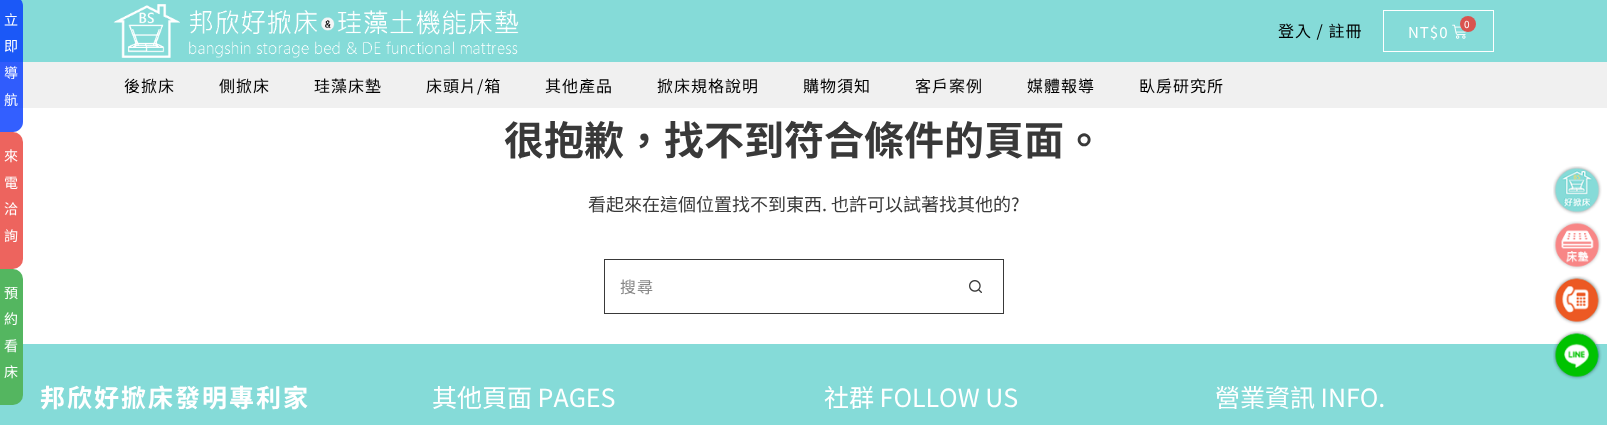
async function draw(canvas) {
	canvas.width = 1607;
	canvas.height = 425;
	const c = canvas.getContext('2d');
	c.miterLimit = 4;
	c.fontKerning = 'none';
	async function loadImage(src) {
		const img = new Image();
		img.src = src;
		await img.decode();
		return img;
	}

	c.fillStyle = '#fff';
	c.fillRect(0, 0, 1607, 425);
	c.fillStyle = '#85dbd8';
	c.fillRect(0, 0, 1607, 62);
	c.fillStyle = '#f0f0f0';
	c.fillRect(0, 62, 1607, 46);
	c.fillStyle = '#0037ffcc';
	c.beginPath();
	c.moveTo(0, -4);
	c.lineTo(13, -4);
	c.bezierCurveTo(18.5, -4, 23, 0.5, 23, 6);
	c.lineTo(23, 122);
	c.bezierCurveTo(23, 127.5, 18.5, 132, 13, 132);
	c.lineTo(0, 132);
	c.closePath();
	c.fill();
	c.letterSpacing = '1px';
	c.font = '14px Noto Sans TC';
	c.fillStyle = '#fff';
	for (const [text, x, y] of [
		['立', 4, 25],
		['即', 4, 51],
		['導', 4, 78],
		['航', 4, 105],
	]) {
		c.fillText(text, x, y);
	}
	c.fillStyle = '#ed645e';
	c.beginPath();
	c.roundRect(0, 132, 23, 137, [0, 10, 10, 0]);
	c.fill();
	c.fillStyle = '#fff';
	for (const [text, x, y] of [
		['來', 4, 161],
		['電', 4, 188],
		['洽', 4, 214],
		['詢', 4, 241],
	]) {
		c.fillText(text, x, y);
	}
	c.fillStyle = '#85dbd8';
	c.fillRect(0, 344, 1607, 81);
	c.fillStyle = '#54b660';
	c.beginPath();
	c.roundRect(0, 269, 23, 136, [0, 10, 10, 0]);
	c.fill();
	c.fillStyle = '#fff';
	for (const [text, x, y] of [
		['預', 4, 298],
		['約', 4, 324],
		['看', 4, 351],
		['床', 4, 377],
	]) {
		c.fillText(text, x, y);
	}
	c.drawImage(await loadImage('img1.png'), 1553, 166, 49, 49);
	c.drawImage(await loadImage('img2.png'), 1553, 221, 48, 48);
	c.drawImage(await loadImage('img3.png'), 1553, 276, 49, 49);
	c.drawImage(await loadImage('img4.png'), 1553, 331, 49, 49);
	c.letterSpacing = '2px';
	c.font = 'bold 25px Noto Sans TC';
	c.fillText('邦欣好掀床發明專利家', 40, 407);
	c.letterSpacing = '0px';
	c.font = '25px Noto Sans TC';
	for (const [text, x, y] of [
		['其他頁面 PAGES', 432, 407],
		['社群 FOLLOW US', 824, 407],
		['營業資訊 INFO.', 1215, 407],
	]) {
		c.fillText(text, x, y);
	}
	c.drawImage(await loadImage('img5.png'), 113, 4, 406, 54);
	c.letterSpacing = '1px';
	c.font = '16px Noto Sans TC';
	c.fillStyle = '#000';
	c.fillText('登入 / 註冊', 1278, 37);
	c.strokeStyle = '#fff';
	c.strokeRect(1383.5, 10.5, 110, 41);
	c.font = '15px Noto Sans TC';
	c.fillStyle = '#fff';
	c.fillText('NT$0', 1408, 38);
	c.drawImage(await loadImage('img6.png'), 1452, 24, 15, 15);
	c.fillStyle = '#d9534f';
	c.beginPath();
	c.arc(1468, 24, 8, 0, 2 * Math.PI);
	c.fill();
	c.font = '10px Noto Sans TC';
	c.fillStyle = '#fff';
	c.fillText('0', 1464, 28);
	c.font = '16px Noto Sans TC';
	c.fillStyle = '#000';
	for (const [text, x, y] of [
		['後掀床', 124, 92],
		['側掀床', 219, 92],
		['珪藻床墊', 314, 92],
		['床頭片/箱', 426, 92],
		['其他產品', 545, 92],
		['掀床規格說明', 657, 92],
		['購物須知', 803, 92],
		['客戶案例', 915, 92],
		['媒體報導', 1027, 92],
		['臥房研究所', 1139, 92],
	]) {
		c.fillText(text, x, y);
	}
	c.letterSpacing = '0px';
	c.font = 'bold 40px Noto Sans TC';
	c.fillStyle = '#393939';
	c.fillText('很抱歉，找不到符合條件的頁面。', 504, 155);
	c.font = '18px Noto Sans TC';
	c.fillText('看起來在這個位置找不到東西. 也許可以試著找其他的?', 588, 211);
	for (const [x, y, w, h, color] of [
		[604, 259, 400, 1, '#393939'],
		[604, 313, 345, 1, '#393939'],
		[604, 259, 1, 55, '#393939'],
	]) {
		c.fillStyle = color;
		c.fillRect(x, y, w, h);
	}
	c.letterSpacing = '1px';
	c.font = '16px Noto Sans TC';
	c.fillStyle = '#888';
	c.fillText('搜尋', 620, 293);
	c.fillStyle = '#393939';
	c.fillRect(1003, 259, 1, 55);
	c.fillRect(949, 313, 55, 1);
	c.drawImage(await loadImage('img7.png'), 969, 280, 13, 13);
}

draw(document.querySelector('canvas'));
